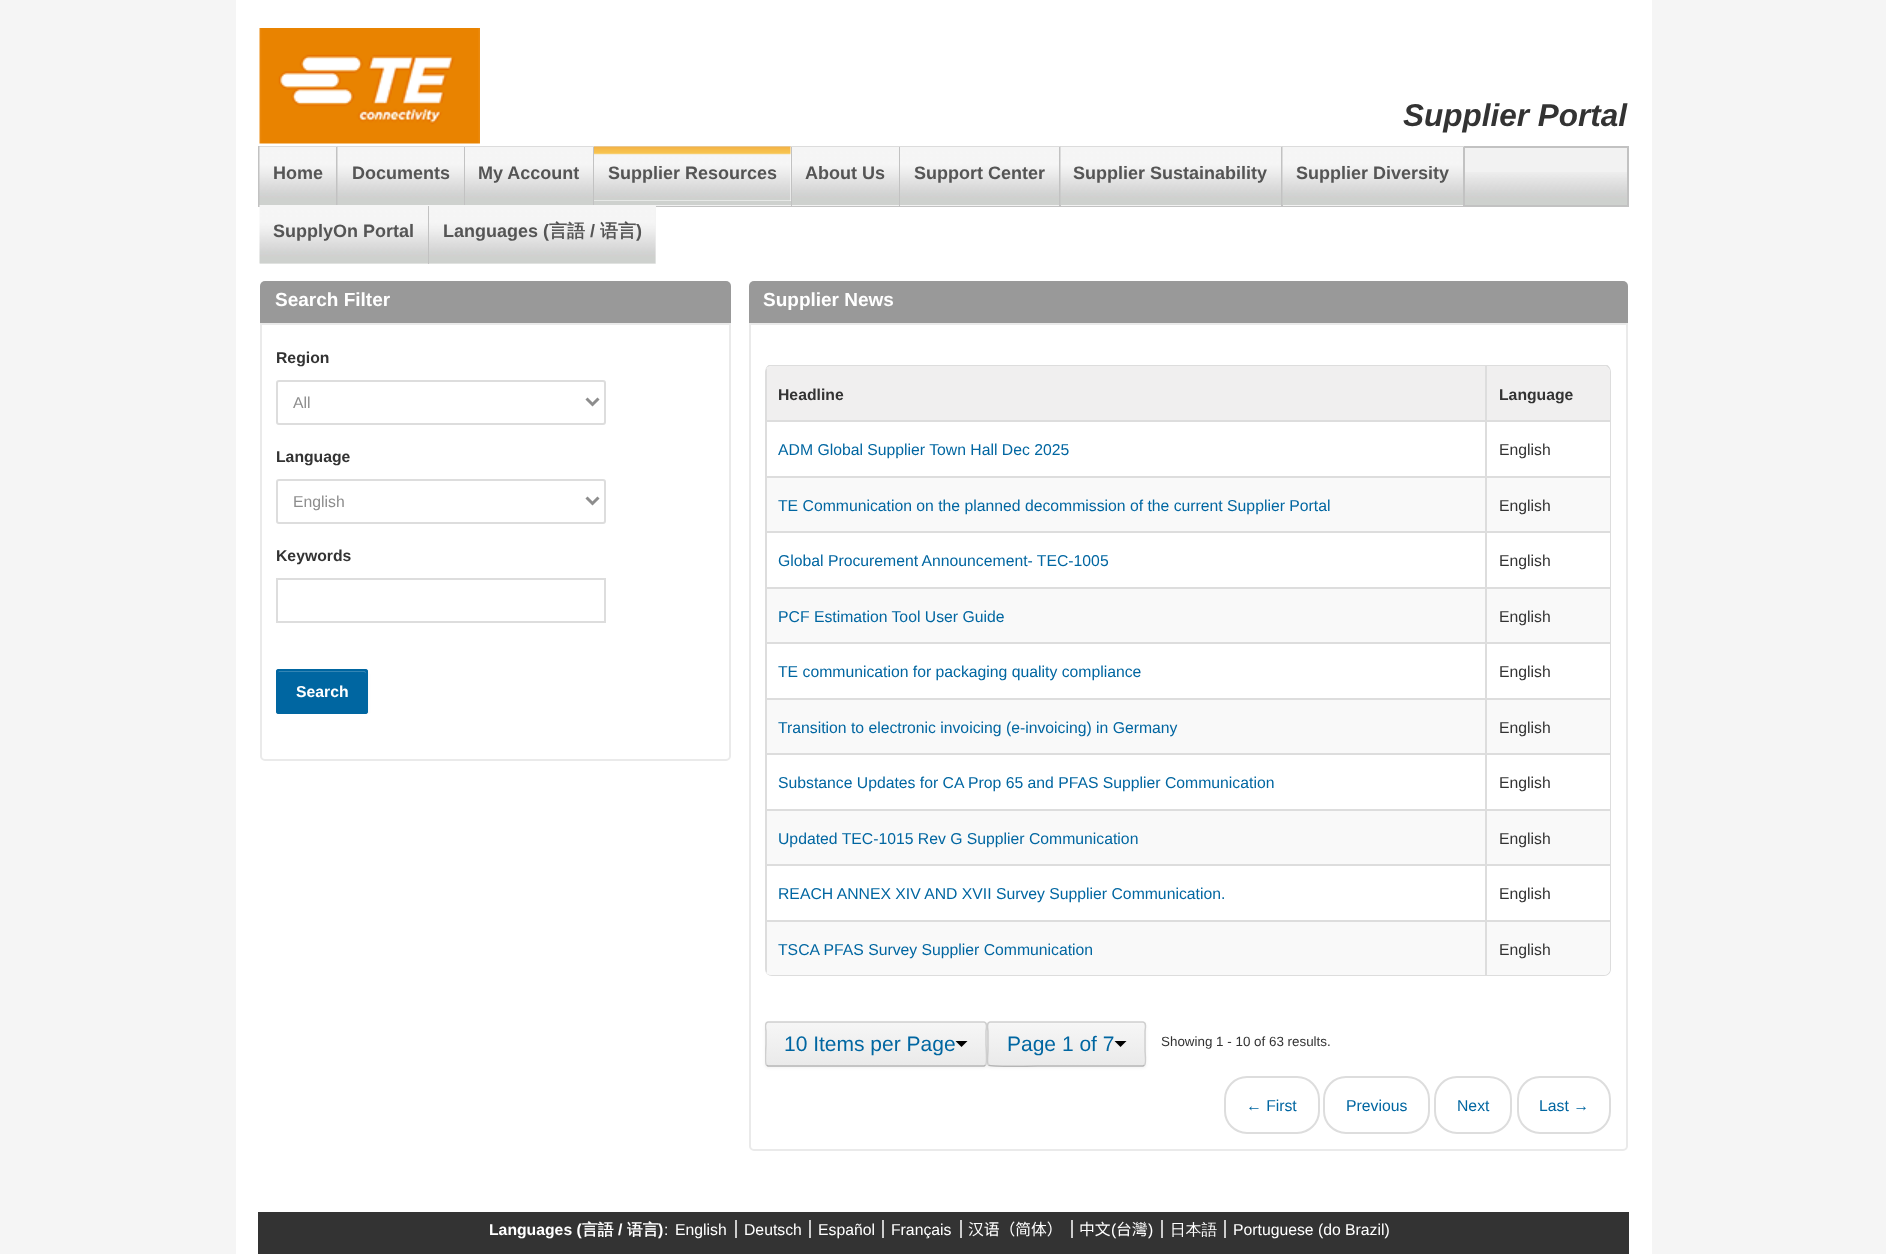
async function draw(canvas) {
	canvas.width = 1886;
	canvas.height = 1254;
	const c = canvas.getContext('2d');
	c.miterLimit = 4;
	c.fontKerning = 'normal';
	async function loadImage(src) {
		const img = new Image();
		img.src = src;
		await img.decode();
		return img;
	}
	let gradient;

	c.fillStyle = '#f5f5f5';
	c.fillRect(0, 0, 1886, 1254);
	c.fillStyle = '#fff';
	c.fillRect(236, 0, 1416, 1254);
	c.drawImage(await loadImage('img1.png'), 259, 28, 221, 116);
	c.font = 'italic bold 31.5px Liberation Sans';
	c.fillStyle = '#333';
	c.fillText('Supplier Portal', 1403, 126);
	c.fillStyle = '#f2f2f2';
	c.fillRect(1465, 148, 162, 24);
	c.drawImage(await loadImage('img2.png'), 1465, 172, 162, 33);
	c.strokeStyle = '#c2c2c2';
	c.lineWidth = 2;
	c.strokeRect(259, 147, 1369, 59);
	c.drawImage(await loadImage('img3.png'), 259, 146, 79, 59);
	c.fillStyle = '#c2c2c2';
	c.fillRect(336, 147, 2, 59);
	c.font = 'bold 18px Liberation Sans';
	c.fillStyle = '#555';
	c.fillText('Home', 273, 179);
	c.drawImage(await loadImage('img4.png'), 337, 146, 128, 59);
	c.fillStyle = '#c2c2c2';
	c.fillRect(464, 147, 1, 59);
	c.fillStyle = '#555';
	c.fillText('Documents', 352, 179);
	c.drawImage(await loadImage('img5.png'), 465, 146, 129, 59);
	c.fillStyle = '#c2c2c2';
	c.fillRect(593, 147, 1, 59);
	c.fillStyle = '#555';
	c.fillText('My Account', 478, 179);
	c.fillStyle = '#f2f2f2';
	c.fillRect(655, 205, 136, 1);
	c.drawImage(await loadImage('img6.png'), 594, 146, 198, 59);
	c.fillStyle = '#c2c2c2';
	c.fillRect(791, 147, 1, 59);
	c.fillStyle = '#fff';
	c.fillRect(594, 147, 197, 54);
	c.drawImage(await loadImage('img7.png'), 594, 146, 197, 55);
	c.fillStyle = '#555';
	c.fillText('Supplier Resources', 608, 179);
	c.fillStyle = '#f2f2f2';
	c.fillRect(792, 205, 107, 1);
	c.drawImage(await loadImage('img8.png'), 792, 146, 108, 59);
	c.fillStyle = '#c2c2c2';
	c.fillRect(899, 147, 1, 59);
	c.fillStyle = '#555';
	c.fillText('About Us', 805, 179);
	c.fillStyle = '#f2f2f2';
	c.fillRect(900, 205, 159, 1);
	c.drawImage(await loadImage('img9.png'), 900, 146, 161, 59);
	c.fillStyle = '#c2c2c2';
	c.fillRect(1059, 147, 2, 59);
	c.fillStyle = '#555';
	c.fillText('Support Center', 914, 179);
	c.fillStyle = '#f2f2f2';
	c.fillRect(1061, 205, 220, 1);
	c.drawImage(await loadImage('img10.png'), 1060, 146, 223, 59);
	c.fillStyle = '#c2c2c2';
	c.fillRect(1281, 147, 2, 59);
	c.fillStyle = '#555';
	c.fillText('Supplier Sustainability', 1073, 179);
	c.fillStyle = '#f2f2f2';
	c.fillRect(1283, 205, 180, 1);
	c.drawImage(await loadImage('img11.png'), 1282, 146, 182, 59);
	c.fillStyle = '#c2c2c2';
	c.fillRect(1463, 147, 2, 59);
	c.fillStyle = '#555';
	c.fillText('Supplier Diversity', 1296, 179);
	c.fillStyle = '#f2f2f2';
	c.fillRect(260, 263, 168, 1);
	c.drawImage(await loadImage('img12.png'), 259, 205, 170, 59);
	c.fillStyle = '#c2c2c2';
	c.fillRect(428, 206, 1, 58);
	c.fillStyle = '#555';
	c.fillText('SupplyOn Portal', 273, 237);
	c.fillStyle = '#f2f2f2';
	c.fillRect(429, 206, 227, 58);
	c.drawImage(await loadImage('img13.png'), 429, 205, 227, 59);
	c.fillStyle = '#555';
	c.fillText('Languages (', 443, 237);
	c.font = 'bold 18px WenQuanYi Zen Hei';
	c.fillText('言語', 549, 237);
	c.font = 'bold 18px Liberation Sans';
	c.fillText('/', 590, 237);
	c.font = 'bold 18px WenQuanYi Zen Hei';
	c.fillText('语言', 600, 237);
	c.font = 'bold 18px Liberation Sans';
	c.fillText(')', 636, 237);
	c.fillStyle = '#999';
	c.beginPath();
	c.roundRect(260, 281, 471, 42, [5, 5, 0, 0]);
	c.fill();
	c.font = 'bold 19px Liberation Sans';
	c.fillStyle = '#fff';
	c.fillText('Search Filter', 275, 306);
	c.beginPath();
	c.roundRect(261, 324, 469, 436, [0, 0, 4, 4]);
	c.strokeStyle = '#eaeaea';
	c.stroke();
	c.font = 'bold 15.75px Liberation Sans';
	c.fillStyle = '#333';
	c.fillText('Region', 276, 363);
	c.beginPath();
	c.roundRect(277, 381, 328, 43, 2);
	c.strokeStyle = '#ddd';
	c.stroke();
	c.beginPath();
	c.moveTo(586.5, 398.5);
	c.lineTo(592.5, 404.5);
	c.lineTo(598.5, 398.5);
	c.strokeStyle = '#8d8d8d';
	c.lineWidth = 3;
	c.stroke();
	c.font = '15.75px Liberation Sans';
	c.fillStyle = '#8d8d8d';
	c.fillText('All', 293, 408);
	c.font = 'bold 15.75px Liberation Sans';
	c.fillStyle = '#333';
	c.fillText('Language', 276, 462);
	c.beginPath();
	c.roundRect(277, 480, 328, 43, 2);
	c.strokeStyle = '#ddd';
	c.lineWidth = 2;
	c.stroke();
	c.beginPath();
	c.moveTo(586.5, 497.5);
	c.lineTo(592.5, 503.5);
	c.lineTo(598.5, 497.5);
	c.strokeStyle = '#8d8d8d';
	c.lineWidth = 3;
	c.stroke();
	c.font = '15.75px Liberation Sans';
	c.fillStyle = '#8d8d8d';
	c.fillText('English', 293, 507);
	c.font = 'bold 15.75px Liberation Sans';
	c.fillStyle = '#333';
	c.fillText('Keywords', 276, 561);
	c.strokeStyle = '#ddd';
	c.lineWidth = 2;
	c.strokeRect(277, 579, 328, 43);
	c.save();
	c.beginPath();
	c.rect(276, 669, 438, 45);
	c.clip();
	c.fillStyle = '#0000000d';
	c.filter = 'blur(1.5px)';
	c.beginPath();
	c.roundRect(276, 671, 92, 45, 3);
	c.fill();
	c.filter = 'none';
	c.restore();
	c.fillStyle = '#0066a1';
	c.beginPath();
	c.roundRect(276, 669, 92, 45, 3);
	c.fill();
	c.fillStyle = '#3385b4';
	c.beginPath();
	c.moveTo(279, 672);
	c.lineTo(364, 672);
	c.bezierCurveTo(365, 672, 366, 673, 366, 674);
	c.bezierCurveTo(366, 667, 356, 671, 350, 671);
	c.lineTo(294, 671);
	c.bezierCurveTo(288, 671, 278, 667, 278, 674);
	c.bezierCurveTo(278, 673, 278, 672, 279, 672);
	c.closePath();
	c.fill();
	c.beginPath();
	c.roundRect(277, 670, 90, 43, 2);
	c.strokeStyle = '#0066a1';
	c.stroke();
	c.fillStyle = '#fff';
	c.fillText('Search', 296, 697);
	c.fillStyle = '#999';
	c.beginPath();
	c.roundRect(749, 281, 879, 42, [5, 5, 0, 0]);
	c.fill();
	c.font = 'bold 19px Liberation Sans';
	c.fillStyle = '#fff';
	c.fillText('Supplier News', 763, 306);
	c.beginPath();
	c.roundRect(750, 324, 877, 826, [0, 0, 4, 4]);
	c.strokeStyle = '#eaeaea';
	c.stroke();
	c.save();
	c.beginPath();
	c.rect(765, 365, 846, 769);
	c.clip();
	c.fillStyle = '#ddd';
	c.beginPath();
	c.moveTo(772, 364);
	c.lineTo(1604, 364);
	c.bezierCurveTo(1608, 364, 1611, 368, 1611, 372);
	c.lineTo(1611, 969);
	c.bezierCurveTo(1611, 973, 1608, 976, 1604, 976);
	c.lineTo(772, 976);
	c.bezierCurveTo(768, 976, 765, 973, 765, 969);
	c.lineTo(765, 372);
	c.bezierCurveTo(765, 368, 768, 364, 772, 364);
	c.closePath();
	c.moveTo(772, 366);
	c.lineTo(1604, 366);
	c.bezierCurveTo(1607, 366, 1610, 369, 1610, 372);
	c.lineTo(1610, 969);
	c.bezierCurveTo(1610, 972, 1607, 975, 1604, 975);
	c.lineTo(772, 975);
	c.bezierCurveTo(768, 975, 765, 972, 765, 969);
	c.lineTo(765, 372);
	c.bezierCurveTo(765, 369, 768, 366, 772, 366);
	c.closePath();
	c.fill('evenodd');
	c.restore();
	c.fillStyle = '#f0efef';
	c.beginPath();
	c.moveTo(772, 366);
	c.bezierCurveTo(768, 366, 765, 369, 765, 372);
	c.lineTo(765, 420);
	c.lineTo(1485, 420);
	c.lineTo(1485, 366);
	c.closePath();
	c.fill();
	c.fillStyle = '#ddd';
	c.beginPath();
	c.moveTo(765, 372);
	c.lineTo(765, 420);
	c.lineTo(767, 420);
	c.lineTo(767, 368);
	c.bezierCurveTo(766, 369, 765, 370, 765, 372);
	c.closePath();
	c.fill();
	c.font = 'bold 15.75px Liberation Sans';
	c.fillStyle = '#333';
	c.fillText('Headline', 778, 400);
	c.fillStyle = '#f0efef';
	c.beginPath();
	c.moveTo(1485, 366);
	c.lineTo(1485, 420);
	c.lineTo(1610, 420);
	c.lineTo(1610, 372);
	c.bezierCurveTo(1610, 369, 1607, 366, 1604, 366);
	c.closePath();
	c.fill();
	c.fillStyle = '#ddd';
	c.fillRect(1485, 366, 2, 54);
	c.fillStyle = '#333';
	c.fillText('Language', 1499, 400);
	c.fillStyle = '#ddd';
	c.fillRect(765, 420, 845, 2);
	c.fillRect(765, 420, 2, 56);
	c.font = '15.75px Liberation Sans';
	c.fillStyle = '#0066a1';
	c.fillText('ADM Global Supplier Town Hall Dec 2025', 778, 455);
	c.fillStyle = '#ddd';
	c.fillRect(1485, 420, 2, 56);
	c.fillStyle = '#333';
	c.fillText('English', 1499, 455);
	for (const [x, y, w, h, color] of [
		[767, 478, 718, 53, '#f9f9f9'],
		[765, 476, 845, 2, '#ddd'],
		[765, 476, 2, 55, '#ddd'],
	]) {
		c.fillStyle = color;
		c.fillRect(x, y, w, h);
	}
	c.fillStyle = '#0066a1';
	c.fillText('TE Communication on the planned decommission of the current Supplier Portal', 778, 511);
	c.fillStyle = '#f9f9f9';
	c.fillRect(1487, 478, 123, 53);
	c.fillStyle = '#ddd';
	c.fillRect(1485, 476, 2, 55);
	c.fillStyle = '#333';
	c.fillText('English', 1499, 511);
	c.fillStyle = '#ddd';
	c.fillRect(765, 531, 845, 2);
	c.fillRect(765, 531, 2, 56);
	c.fillStyle = '#0066a1';
	c.fillText('Global Procurement Announcement- TEC-1005', 778, 566);
	c.fillStyle = '#ddd';
	c.fillRect(1485, 531, 2, 56);
	c.fillStyle = '#333';
	c.fillText('English', 1499, 566);
	for (const [x, y, w, h, color] of [
		[767, 589, 718, 53, '#f9f9f9'],
		[765, 587, 845, 2, '#ddd'],
		[765, 587, 2, 55, '#ddd'],
	]) {
		c.fillStyle = color;
		c.fillRect(x, y, w, h);
	}
	c.fillStyle = '#0066a1';
	c.fillText('PCF Estimation Tool User Guide', 778, 622);
	c.fillStyle = '#f9f9f9';
	c.fillRect(1487, 589, 123, 53);
	c.fillStyle = '#ddd';
	c.fillRect(1485, 587, 2, 55);
	c.fillStyle = '#333';
	c.fillText('English', 1499, 622);
	c.fillStyle = '#ddd';
	c.fillRect(765, 642, 845, 2);
	c.fillRect(765, 642, 2, 56);
	c.fillStyle = '#0066a1';
	c.fillText('TE communication for packaging quality compliance', 778, 677);
	c.fillStyle = '#ddd';
	c.fillRect(1485, 642, 2, 56);
	c.fillStyle = '#333';
	c.fillText('English', 1499, 677);
	for (const [x, y, w, h, color] of [
		[767, 700, 718, 53, '#f9f9f9'],
		[765, 698, 845, 2, '#ddd'],
		[765, 698, 2, 55, '#ddd'],
	]) {
		c.fillStyle = color;
		c.fillRect(x, y, w, h);
	}
	c.fillStyle = '#0066a1';
	c.fillText('Transition to electronic invoicing (e-invoicing) in Germany', 778, 733);
	c.fillStyle = '#f9f9f9';
	c.fillRect(1487, 700, 123, 53);
	c.fillStyle = '#ddd';
	c.fillRect(1485, 698, 2, 55);
	c.fillStyle = '#333';
	c.fillText('English', 1499, 733);
	c.fillStyle = '#ddd';
	c.fillRect(765, 753, 845, 2);
	c.fillRect(765, 753, 2, 56);
	c.fillStyle = '#0066a1';
	c.fillText('Substance Updates for CA Prop 65 and PFAS Supplier Communication', 778, 788);
	c.fillStyle = '#ddd';
	c.fillRect(1485, 753, 2, 56);
	c.fillStyle = '#333';
	c.fillText('English', 1499, 788);
	for (const [x, y, w, h, color] of [
		[767, 811, 718, 53, '#f9f9f9'],
		[765, 809, 845, 2, '#ddd'],
		[765, 809, 2, 55, '#ddd'],
	]) {
		c.fillStyle = color;
		c.fillRect(x, y, w, h);
	}
	c.fillStyle = '#0066a1';
	c.fillText('Updated TEC-1015 Rev G Supplier Communication', 778, 844);
	c.fillStyle = '#f9f9f9';
	c.fillRect(1487, 811, 123, 53);
	c.fillStyle = '#ddd';
	c.fillRect(1485, 809, 2, 55);
	c.fillStyle = '#333';
	c.fillText('English', 1499, 844);
	c.fillStyle = '#ddd';
	c.fillRect(765, 864, 845, 2);
	c.fillRect(765, 864, 2, 56);
	c.fillStyle = '#0066a1';
	c.fillText('REACH ANNEX XIV AND XVII Survey Supplier Communication.', 778, 899);
	c.fillStyle = '#ddd';
	c.fillRect(1485, 864, 2, 56);
	c.fillStyle = '#333';
	c.fillText('English', 1499, 899);
	c.fillStyle = '#f9f9f9';
	c.beginPath();
	c.moveTo(765, 920);
	c.lineTo(765, 969);
	c.bezierCurveTo(765, 972, 768, 975, 772, 975);
	c.lineTo(1485, 975);
	c.lineTo(1485, 920);
	c.closePath();
	c.fill();
	c.fillStyle = '#ddd';
	c.fillRect(765, 920, 720, 2);
	c.beginPath();
	c.moveTo(765, 920);
	c.lineTo(765, 969);
	c.bezierCurveTo(765, 971, 766, 972, 767, 973);
	c.lineTo(767, 920);
	c.closePath();
	c.fill();
	c.fillStyle = '#0066a1';
	c.fillText('TSCA PFAS Survey Supplier Communication', 778, 955);
	c.fillStyle = '#f9f9f9';
	c.beginPath();
	c.moveTo(1485, 920);
	c.lineTo(1485, 975);
	c.lineTo(1604, 975);
	c.bezierCurveTo(1607, 975, 1610, 972, 1610, 969);
	c.lineTo(1610, 920);
	c.closePath();
	c.fill();
	c.fillStyle = '#ddd';
	c.fillRect(1485, 920, 125, 2);
	c.fillRect(1485, 920, 2, 55);
	c.fillStyle = '#333';
	c.fillText('English', 1499, 955);
	c.fillStyle = '#0000000d';
	c.filter = 'blur(1.5px)';
	c.beginPath();
	c.roundRect(987, 1023, 159, 45, 3);
	c.fill();
	c.filter = 'none';
	c.fillStyle = '#f1f1f1';
	c.beginPath();
	c.roundRect(987, 1022, 159, 45, 3);
	c.fill();
	c.save();
	c.beginPath();
	c.roundRect(987, 1022, 159, 45, 3);
	c.clip();
	gradient = c.createLinearGradient(1067, 1023, 1067, 1065);
	gradient.addColorStop(0, '#f6f6f6');
	gradient.addColorStop(1, '#eaeaea');
	c.fillStyle = gradient;
	c.fillRect(987, 1023, 159, 42);
	c.restore();
	c.fillStyle = '#ffffff33';
	c.beginPath();
	c.moveTo(990, 1024);
	c.lineTo(1143, 1024);
	c.bezierCurveTo(1144, 1024, 1144, 1025, 1144, 1026);
	c.lineTo(1144, 1065);
	c.bezierCurveTo(1145, 1065, 1145, 1064, 1145, 1064);
	c.lineTo(1145, 1024);
	c.bezierCurveTo(1145, 1024, 1144, 1023, 1144, 1023);
	c.lineTo(990, 1023);
	c.bezierCurveTo(990, 1023, 989, 1024, 989, 1024);
	c.closePath();
	c.fill();
	c.beginPath();
	c.moveTo(1144.5, 1065);
	c.lineTo(1143, 1066);
	c.lineTo(1041, 1066);
	c.bezierCurveTo(1037.5, 1066, 990, 1067, 988.5, 1065);
	c.strokeStyle = '#b5b5b5';
	c.lineWidth = 1.5;
	c.stroke();
	c.beginPath();
	c.moveTo(988.5, 1065);
	c.bezierCurveTo(986.5, 1063.5, 988, 1053, 988, 1050.5);
	c.lineTo(988, 1031);
	c.bezierCurveTo(988, 1030, 986, 1022.5, 990, 1022);
	c.lineTo(1143, 1022);
	c.bezierCurveTo(1147, 1022.5, 1145, 1030, 1145, 1031);
	c.lineTo(1145, 1050.5);
	c.bezierCurveTo(1145, 1053, 1146.5, 1063.5, 1144.5, 1065);
	c.strokeStyle = '#cfcfcf';
	c.stroke();
	c.fillStyle = '#0000000d';
	c.filter = 'blur(1.5px)';
	c.beginPath();
	c.roundRect(765, 1023, 222, 45, 3);
	c.fill();
	c.filter = 'none';
	c.fillStyle = '#f1f1f1';
	c.beginPath();
	c.roundRect(765, 1022, 222, 45, 3);
	c.fill();
	c.save();
	c.beginPath();
	c.roundRect(765, 1022, 222, 45, 3);
	c.clip();
	gradient = c.createLinearGradient(876, 1023, 876, 1065);
	gradient.addColorStop(0, '#f6f6f6');
	gradient.addColorStop(1, '#eaeaea');
	c.fillStyle = gradient;
	c.fillRect(765, 1023, 222, 42);
	c.restore();
	c.beginPath();
	c.moveTo(985.5, 1065);
	c.lineTo(984, 1066);
	c.lineTo(768, 1066);
	c.lineTo(766.5, 1065);
	c.strokeStyle = '#b5b5b5';
	c.stroke();
	c.save();
	c.beginPath();
	c.rect(765, 1007, 846, 127);
	c.clip();
	c.beginPath();
	c.moveTo(766.5, 1065);
	c.bezierCurveTo(764.5, 1063.5, 766, 1047, 766, 1044);
	c.lineTo(766, 1031);
	c.bezierCurveTo(766, 1030, 764, 1022.5, 768, 1022);
	c.lineTo(984, 1022);
	c.bezierCurveTo(988, 1022.5, 986, 1030, 986, 1031);
	c.lineTo(986, 1044);
	c.bezierCurveTo(986, 1047, 987.5, 1063.5, 985.5, 1065);
	c.strokeStyle = '#cfcfcf';
	c.stroke();
	c.restore();
	c.font = '21px Liberation Sans';
	c.fillStyle = '#0066a1';
	c.fillText('10 Items per Page', 784, 1051);
	c.fillStyle = '#000';
	c.beginPath();
	c.moveTo(955.5, 1041);
	c.lineTo(967.5, 1041);
	c.lineTo(961.5, 1047);
	c.closePath();
	c.fill();
	c.fillStyle = '#0066a1';
	c.fillText('Page 1 of 7', 1007, 1051);
	c.fillStyle = '#000';
	c.beginPath();
	c.moveTo(1114.5, 1041);
	c.lineTo(1126.5, 1041);
	c.lineTo(1120.5, 1047);
	c.closePath();
	c.fill();
	c.font = '13.4px Liberation Sans';
	c.fillStyle = '#333';
	c.fillText('Showing 1 - 10 of 63 results.', 1161, 1046);
	c.beginPath();
	c.roundRect(1225, 1077, 94, 56, 22);
	c.strokeStyle = '#ddd';
	c.lineWidth = 2;
	c.stroke();
	c.font = '15.75px Liberation Sans';
	c.fillStyle = '#0066a1';
	c.fillText('← First', 1246, 1111);
	c.beginPath();
	c.roundRect(1324, 1077, 105, 56, 22);
	c.stroke();
	c.fillText('Previous', 1346, 1111);
	c.beginPath();
	c.roundRect(1435, 1077, 76, 56, 22);
	c.stroke();
	c.fillText('Next', 1457, 1111);
	c.beginPath();
	c.roundRect(1518, 1077, 92, 56, 22);
	c.stroke();
	c.fillText('Last →', 1539, 1111);
	c.fillStyle = '#333';
	c.fillRect(258, 1212, 1371, 42);
	c.font = 'bold 15.75px Liberation Sans';
	c.fillStyle = '#fff';
	c.fillText('Languages (', 489, 1235);
	c.font = 'bold 15.75px WenQuanYi Zen Hei';
	c.fillText('言語', 582, 1235);
	c.font = 'bold 15.75px Liberation Sans';
	c.fillText('/', 618, 1235);
	c.font = 'bold 15.75px WenQuanYi Zen Hei';
	c.fillText('语言', 627, 1235);
	c.font = 'bold 15.75px Liberation Sans';
	c.fillText(')', 658, 1235);
	c.font = '15.75px Liberation Sans';
	c.fillText(':', 664, 1235);
	c.fillText('English', 675, 1235);
	c.fillStyle = '#ccc';
	c.fillRect(735, 1220, 2, 18);
	c.fillStyle = '#fff';
	c.fillText('Deutsch', 744, 1235);
	c.fillStyle = '#ccc';
	c.fillRect(809, 1220, 2, 18);
	c.fillStyle = '#fff';
	c.fillText('Español', 818, 1235);
	c.fillStyle = '#ccc';
	c.fillRect(882, 1220, 2, 18);
	c.fillStyle = '#fff';
	c.fillText('Français', 891, 1235);
	c.fillStyle = '#ccc';
	c.fillRect(960, 1220, 2, 18);
	c.font = '15.75px Noto Sans CJK SC';
	c.fillStyle = '#fff';
	c.fillText('汉语（简体）', 968, 1235);
	c.fillStyle = '#ccc';
	c.fillRect(1071, 1220, 2, 18);
	c.font = '15.75px Noto Sans CJK TC';
	c.fillStyle = '#fff';
	c.fillText('中文', 1079, 1235);
	c.font = '15.75px Liberation Sans';
	c.fillText('(', 1111, 1235);
	c.font = '15.75px Noto Sans CJK TC';
	c.fillText('台灣', 1116, 1235);
	c.font = '15.75px Liberation Sans';
	c.fillText(')', 1148, 1235);
	c.fillStyle = '#ccc';
	c.fillRect(1161, 1220, 2, 18);
	c.font = '500 15.75px WenQuanYi Zen Hei';
	c.fillStyle = '#fff';
	c.fillText('日本語', 1170, 1235);
	c.fillStyle = '#ccc';
	c.fillRect(1224, 1220, 2, 18);
	c.font = '15.75px Liberation Sans';
	c.fillStyle = '#fff';
	c.fillText('Portuguese (do Brazil)', 1233, 1235);
}

draw(document.querySelector('canvas'));
